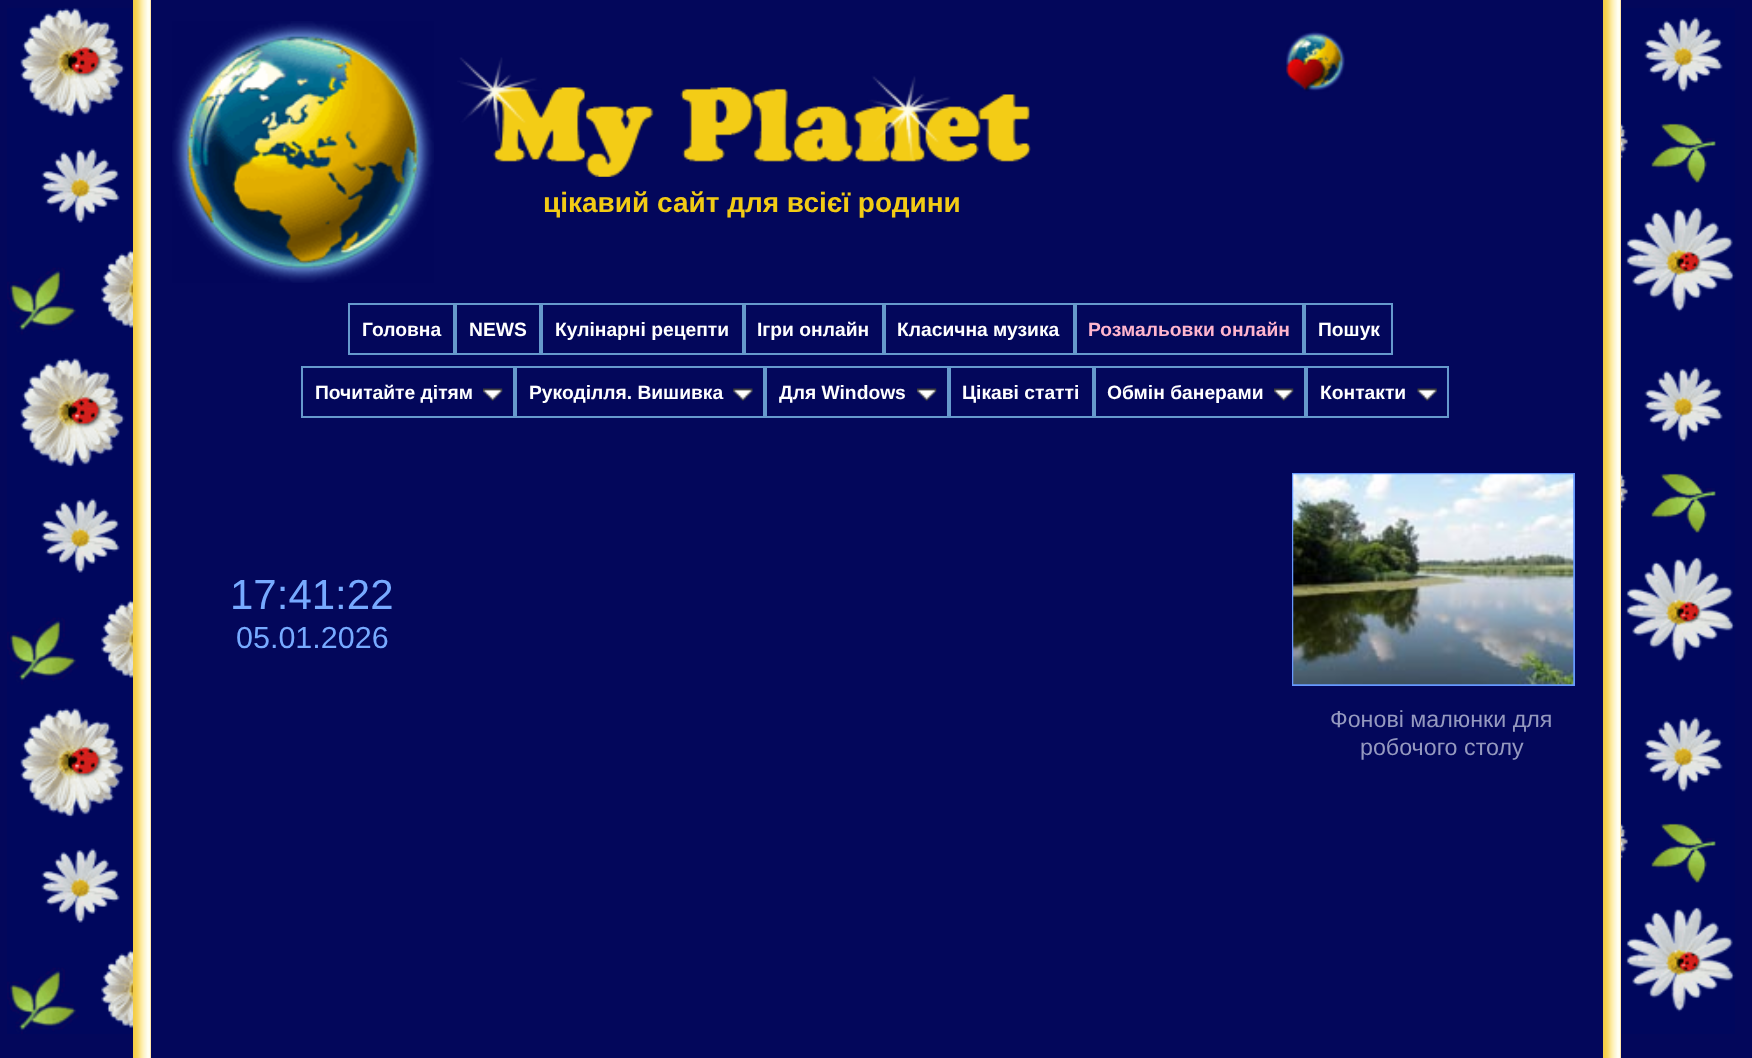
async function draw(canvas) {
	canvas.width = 1752;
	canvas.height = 1058;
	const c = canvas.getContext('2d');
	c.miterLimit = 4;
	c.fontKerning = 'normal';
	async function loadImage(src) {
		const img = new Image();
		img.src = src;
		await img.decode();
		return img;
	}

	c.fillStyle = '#03075b';
	c.fillRect(0, 0, 1752, 1058);
	c.drawImage(await loadImage('img1.png'), 7, 8, 1728, 1026);
	c.fillRect(151, 8, 1452, 1026);
	c.fillStyle = '#fc6';
	c.fillRect(150, 0, 1, 1058);
	c.drawImage(await loadImage('img2.png'), 133, 0, 18, 1058);
	c.drawImage(await loadImage('img3.png'), 172, 21, 262, 262);
	c.drawImage(await loadImage('img4.png'), 1286, 31, 59, 61);
	c.drawImage(await loadImage('img5.png'), 457, 57, 574, 120);
	c.font = 'bold 28px Liberation Sans';
	c.fillStyle = '#f2cb15';
	c.fillText('цікавий сайт для всієї родини', 543, 212);
	c.strokeStyle = '#69c';
	c.lineWidth = 2;
	c.strokeRect(349, 304, 105, 50);
	c.font = 'bold 19.25px Liberation Sans';
	c.fillStyle = '#fff';
	c.fillText('Головна', 362, 336);
	c.strokeRect(456, 304, 84, 50);
	c.fillText('NEWS', 469, 336);
	c.strokeRect(542, 304, 201, 50);
	c.fillText('Кулінарні рецепти', 555, 336);
	c.strokeRect(745, 304, 138, 50);
	c.fillText('Ігри онлайн', 757, 336);
	c.strokeRect(885, 304, 189, 50);
	c.fillText('Класична музика', 897, 336);
	c.strokeRect(1076, 304, 227, 50);
	c.fillStyle = '#ffb5cd';
	c.fillText('Розмальовки онлайн', 1088, 336);
	c.strokeRect(1305, 304, 87, 50);
	c.fillStyle = '#fff';
	c.fillText('Пошук', 1318, 336);
	c.strokeRect(302, 367, 212, 50);
	c.fillText('Почитайте дітям', 315, 399);
	c.drawImage(await loadImage('img6.png'), 483, 388, 20, 13);
	c.strokeRect(516, 367, 248, 50);
	c.fillText('Рукоділля. Вишивка', 529, 399);
	c.drawImage(await loadImage('img7.png'), 733, 388, 20, 13);
	c.strokeRect(766, 367, 182, 50);
	c.fillText('Для Windows', 779, 399);
	c.drawImage(await loadImage('img8.png'), 917, 388, 20, 13);
	c.strokeRect(950, 367, 143, 50);
	c.fillText('Цікаві статті', 962, 399);
	c.strokeRect(1095, 367, 210, 50);
	c.fillText('Обмін банерами', 1107, 399);
	c.drawImage(await loadImage('img6.png'), 1274, 388, 20, 13);
	c.strokeRect(1307, 367, 141, 50);
	c.fillText('Контакти', 1320, 399);
	c.drawImage(await loadImage('img9.png'), 1417, 388, 20, 13);
	c.font = '42px Liberation Sans';
	c.fillStyle = '#7af';
	c.fillText('17:41:22', 230, 609);
	c.font = '30.5px Liberation Sans';
	c.fillText('05.01.2026', 236, 648);
	c.strokeStyle = '#69f';
	c.strokeRect(1293, 474, 281, 211);
	c.drawImage(await loadImage('img10.png'), 1293, 474, 281, 211);
	c.font = '23.25px Liberation Sans';
	c.fillStyle = '#9599bf';
	c.fillText('Фонові малюнки для', 1330, 727);
	c.fillText('робочого столу', 1360, 755);
	c.fillStyle = '#fc6';
	c.fillRect(1620, 0, 1, 1058);
	c.drawImage(await loadImage('img11.png'), 1603, 0, 18, 1058);
}

draw(document.querySelector('canvas'));
